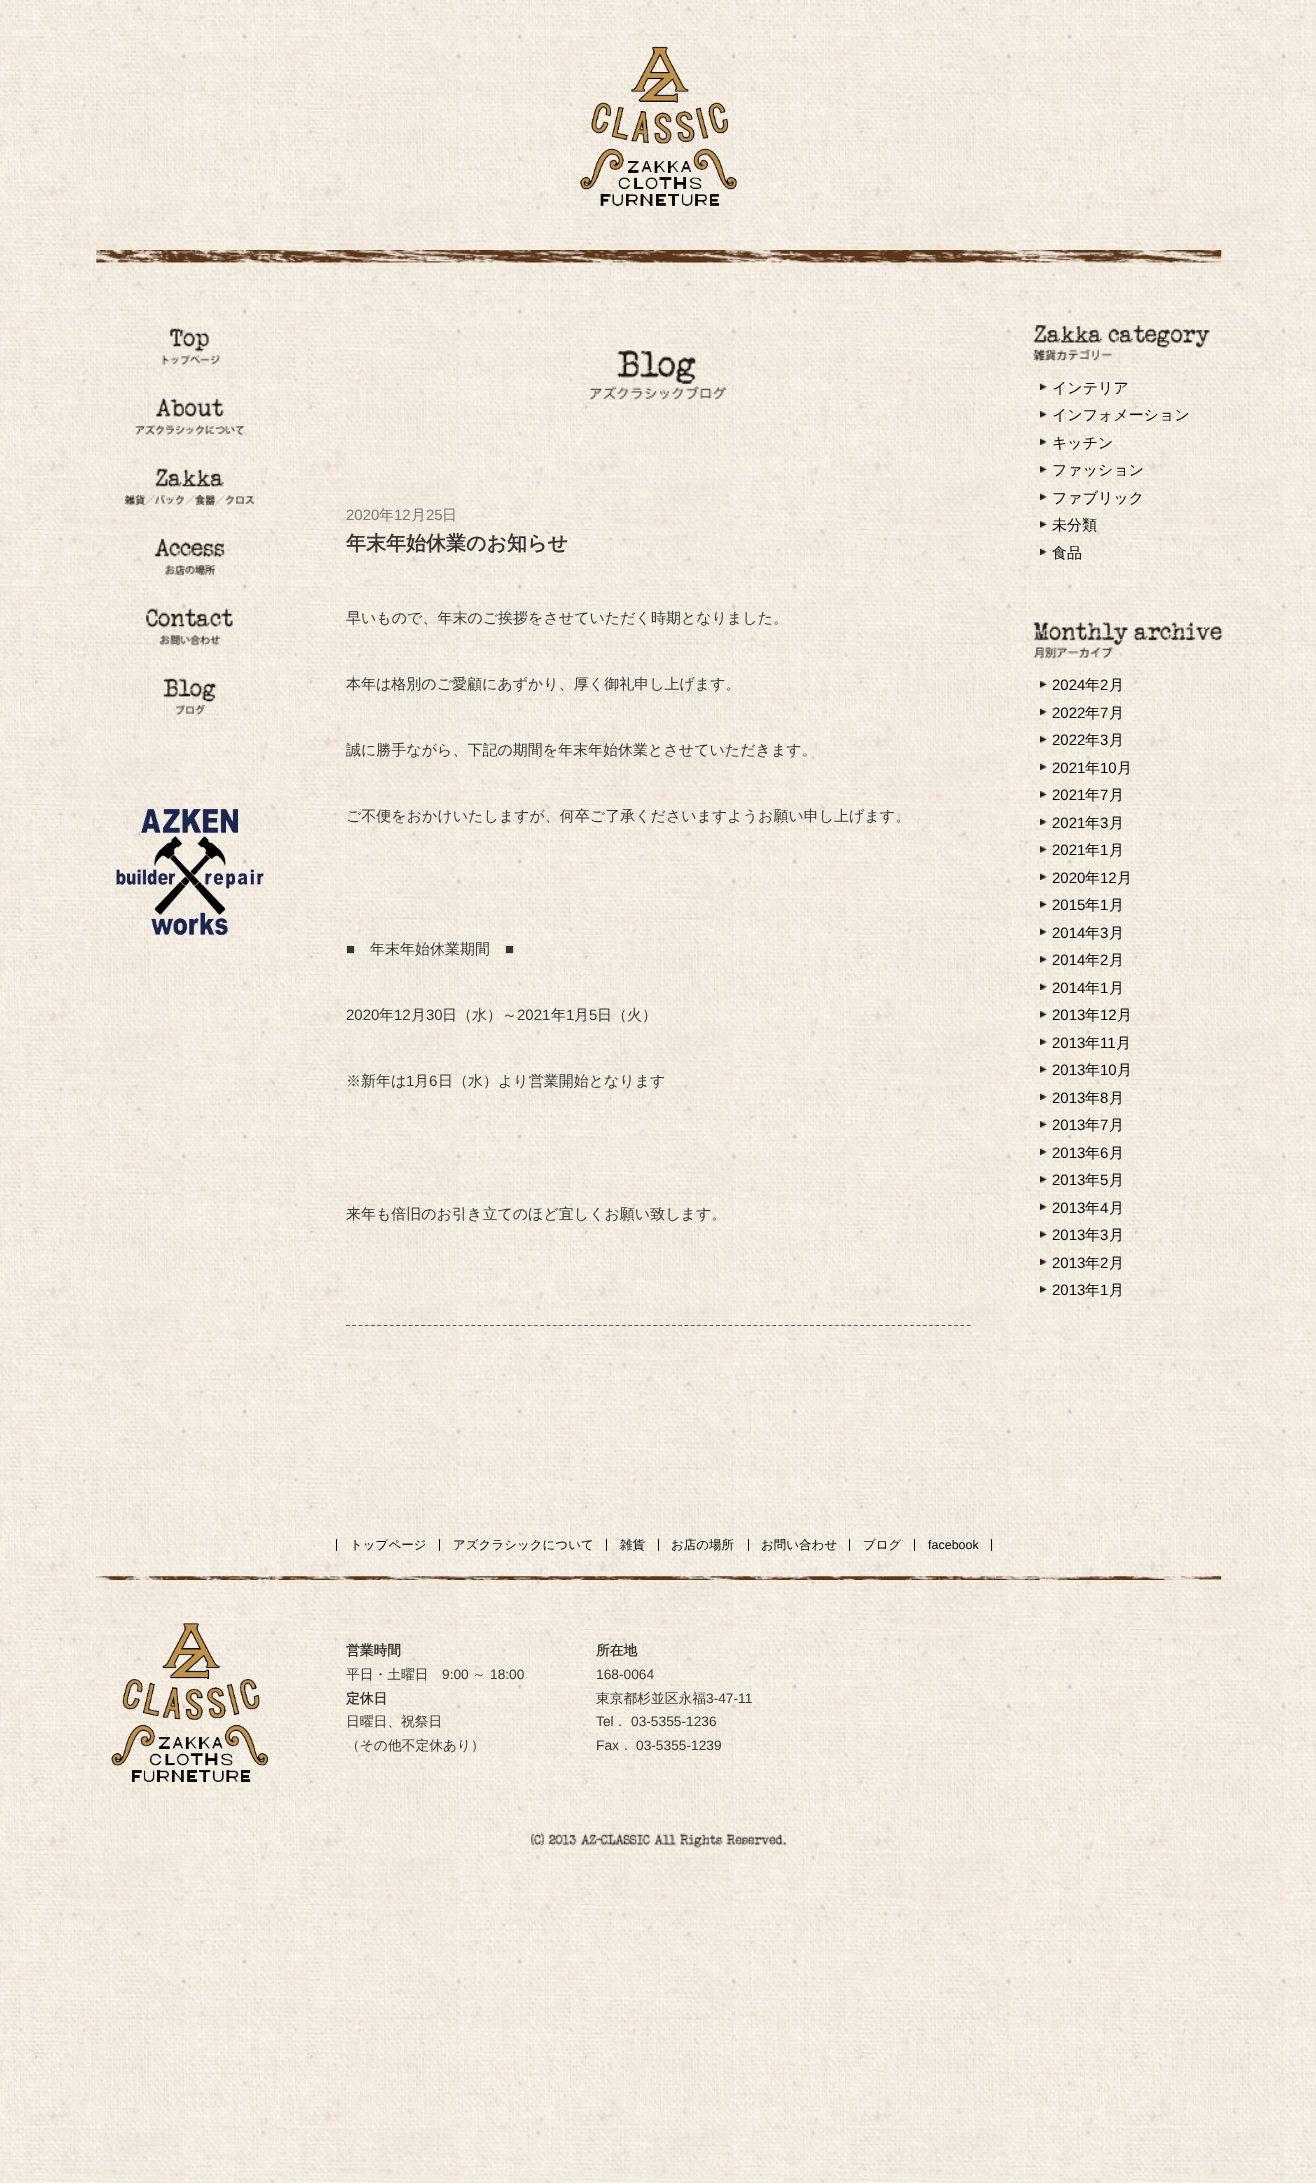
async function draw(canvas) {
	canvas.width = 1316;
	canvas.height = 2183;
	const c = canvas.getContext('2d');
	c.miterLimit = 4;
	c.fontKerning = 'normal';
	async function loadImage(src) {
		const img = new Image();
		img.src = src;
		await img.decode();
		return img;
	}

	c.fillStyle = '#fff';
	c.fillRect(0, 0, 1316, 2183);
	c.drawImage(await loadImage('img1.png'), 0, 0, 1316, 2183);
	c.drawImage(await loadImage('img2.png'), 96, 250, 1126, 13);
	c.drawImage(await loadImage('img3.png'), 580, 46, 157, 160);
	c.drawImage(await loadImage('img4.png'), 162, 328, 58, 38);
	c.drawImage(await loadImage('img5.png'), 135, 398, 109, 38);
	c.drawImage(await loadImage('img6.png'), 125, 468, 130, 38);
	c.drawImage(await loadImage('img7.png'), 155, 538, 70, 38);
	c.drawImage(await loadImage('img8.png'), 146, 608, 87, 38);
	c.drawImage(await loadImage('img9.png'), 163, 678, 54, 38);
	c.drawImage(await loadImage('img10.png'), 115, 809, 149, 126);
	c.drawImage(await loadImage('img11.png'), 590, 350, 137, 50);
	c.beginPath();
	c.moveTo(346, 1325.5);
	c.lineTo(971, 1325.5);
	c.strokeStyle = '#555';
	c.lineWidth = 1.2;
	c.setLineDash([3.75, 2.52]);
	c.stroke();
	c.font = '15px Liberation Sans';
	c.fillStyle = '#777';
	c.fillText('2020', 346, 520);
	c.font = '500 15px WenQuanYi Zen Hei';
	c.fillText('年', 379, 520);
	c.font = '15px Liberation Sans';
	c.fillText('12', 394, 520);
	c.font = '500 15px WenQuanYi Zen Hei';
	c.fillText('月', 411, 520);
	c.font = '15px Liberation Sans';
	c.fillText('25', 426, 520);
	c.font = '500 15px WenQuanYi Zen Hei';
	c.fillText('日', 442, 520);
	c.font = 'bold 20px WenQuanYi Zen Hei';
	c.fillStyle = '#363636';
	c.fillText('年末年始休業のお知らせ', 346, 550);
	c.font = '500 15px WenQuanYi Zen Hei';
	for (const [text, x, y] of [
		['早いもので、年末のご挨拶をさせていただく時期となりました。', 346, 623],
		['本年は格別のご愛顧にあずかり、厚く御礼申し上げます。', 346, 689],
		['誠に勝手ながら、下記の期間を年末年始休業とさせていただきます。', 346, 755],
		['ご不便をおかけいたしますが、何卒ご了承くださいますようお願い申し上げます。', 346, 821],
	]) {
		c.fillText(text, x, y);
	}
	c.font = '15px Liberation Sans';
	c.fillText('■', 346, 954);
	c.font = '500 15px WenQuanYi Zen Hei';
	c.fillText('年末年始休業期間', 370, 954);
	c.font = '15px Liberation Sans';
	c.fillText('■', 505, 954);
	c.fillText('2020', 346, 1020);
	c.font = '500 15px WenQuanYi Zen Hei';
	c.fillText('年', 379, 1020);
	c.font = '15px Liberation Sans';
	c.fillText('12', 394, 1020);
	c.font = '500 15px WenQuanYi Zen Hei';
	c.fillText('月', 411, 1020);
	c.font = '15px Liberation Sans';
	c.fillText('30', 426, 1020);
	c.font = '500 15px WenQuanYi Zen Hei';
	c.fillText('日（水）～', 442, 1020);
	c.font = '15px Liberation Sans';
	c.fillText('2021', 517, 1020);
	c.font = '500 15px WenQuanYi Zen Hei';
	c.fillText('年', 551, 1020);
	c.font = '15px Liberation Sans';
	c.fillText('1', 566, 1020);
	c.font = '500 15px WenQuanYi Zen Hei';
	c.fillText('月', 574, 1020);
	c.font = '15px Liberation Sans';
	c.fillText('5', 589, 1020);
	c.font = '500 15px WenQuanYi Zen Hei';
	c.fillText('日（火）', 597, 1020);
	c.fillText('※新年は', 346, 1086);
	c.font = '15px Liberation Sans';
	c.fillText('1', 406, 1086);
	c.font = '500 15px WenQuanYi Zen Hei';
	c.fillText('月', 414, 1086);
	c.font = '15px Liberation Sans';
	c.fillText('6', 429, 1086);
	c.font = '500 15px WenQuanYi Zen Hei';
	c.fillText('日（水）より営業開始となります', 438, 1086);
	c.fillText('来年も倍旧のお引き立てのほど宜しくお願い致します。', 346, 1219);
	c.drawImage(await loadImage('img12.png'), 1033, 325, 177, 37);
	c.drawImage(await loadImage('img13.png'), 1040, 383, 7, 7);
	c.fillStyle = '#000';
	c.fillText('インテリア', 1052, 393);
	c.drawImage(await loadImage('img14.png'), 1040, 411, 7, 7);
	c.fillText('インフォメーション', 1052, 420);
	c.drawImage(await loadImage('img15.png'), 1040, 438, 7, 7);
	c.fillText('キッチン', 1052, 448);
	c.drawImage(await loadImage('img16.png'), 1040, 466, 7, 7);
	c.fillText('ファッション', 1052, 475);
	c.drawImage(await loadImage('img17.png'), 1040, 493, 7, 7);
	c.fillText('ファブリック', 1052, 503);
	c.drawImage(await loadImage('img18.png'), 1040, 521, 7, 7);
	c.fillText('未分類', 1052, 530);
	c.drawImage(await loadImage('img19.png'), 1040, 548, 7, 7);
	c.fillText('食品', 1052, 558);
	c.drawImage(await loadImage('img20.png'), 1033, 622, 190, 37);
	c.drawImage(await loadImage('img21.png'), 1040, 681, 7, 7);
	c.font = '15px Liberation Sans';
	c.fillText('2024', 1052, 690);
	c.font = '500 15px WenQuanYi Zen Hei';
	c.fillText('年', 1085, 690);
	c.font = '15px Liberation Sans';
	c.fillText('2', 1100, 690);
	c.font = '500 15px WenQuanYi Zen Hei';
	c.fillText('月', 1109, 690);
	c.drawImage(await loadImage('img22.png'), 1040, 708, 7, 7);
	c.font = '15px Liberation Sans';
	c.fillText('2022', 1052, 718);
	c.font = '500 15px WenQuanYi Zen Hei';
	c.fillText('年', 1085, 718);
	c.font = '15px Liberation Sans';
	c.fillText('7', 1100, 718);
	c.font = '500 15px WenQuanYi Zen Hei';
	c.fillText('月', 1109, 718);
	c.drawImage(await loadImage('img23.png'), 1040, 736, 7, 7);
	c.font = '15px Liberation Sans';
	c.fillText('2022', 1052, 745);
	c.font = '500 15px WenQuanYi Zen Hei';
	c.fillText('年', 1085, 745);
	c.font = '15px Liberation Sans';
	c.fillText('3', 1100, 745);
	c.font = '500 15px WenQuanYi Zen Hei';
	c.fillText('月', 1109, 745);
	c.drawImage(await loadImage('img24.png'), 1040, 763, 7, 7);
	c.font = '15px Liberation Sans';
	c.fillText('2021', 1052, 773);
	c.font = '500 15px WenQuanYi Zen Hei';
	c.fillText('年', 1085, 773);
	c.font = '15px Liberation Sans';
	c.fillText('10', 1100, 773);
	c.font = '500 15px WenQuanYi Zen Hei';
	c.fillText('月', 1117, 773);
	c.drawImage(await loadImage('img25.png'), 1040, 791, 7, 7);
	c.font = '15px Liberation Sans';
	c.fillText('2021', 1052, 800);
	c.font = '500 15px WenQuanYi Zen Hei';
	c.fillText('年', 1085, 800);
	c.font = '15px Liberation Sans';
	c.fillText('7', 1100, 800);
	c.font = '500 15px WenQuanYi Zen Hei';
	c.fillText('月', 1109, 800);
	c.drawImage(await loadImage('img26.png'), 1040, 818, 7, 7);
	c.font = '15px Liberation Sans';
	c.fillText('2021', 1052, 828);
	c.font = '500 15px WenQuanYi Zen Hei';
	c.fillText('年', 1085, 828);
	c.font = '15px Liberation Sans';
	c.fillText('3', 1100, 828);
	c.font = '500 15px WenQuanYi Zen Hei';
	c.fillText('月', 1109, 828);
	c.drawImage(await loadImage('img27.png'), 1040, 846, 7, 7);
	c.font = '15px Liberation Sans';
	c.fillText('2021', 1052, 855);
	c.font = '500 15px WenQuanYi Zen Hei';
	c.fillText('年', 1085, 855);
	c.font = '15px Liberation Sans';
	c.fillText('1', 1100, 855);
	c.font = '500 15px WenQuanYi Zen Hei';
	c.fillText('月', 1109, 855);
	c.drawImage(await loadImage('img28.png'), 1040, 873, 7, 7);
	c.font = '15px Liberation Sans';
	c.fillText('2020', 1052, 883);
	c.font = '500 15px WenQuanYi Zen Hei';
	c.fillText('年', 1085, 883);
	c.font = '15px Liberation Sans';
	c.fillText('12', 1100, 883);
	c.font = '500 15px WenQuanYi Zen Hei';
	c.fillText('月', 1117, 883);
	c.drawImage(await loadImage('img29.png'), 1040, 901, 7, 7);
	c.font = '15px Liberation Sans';
	c.fillText('2015', 1052, 910);
	c.font = '500 15px WenQuanYi Zen Hei';
	c.fillText('年', 1085, 910);
	c.font = '15px Liberation Sans';
	c.fillText('1', 1100, 910);
	c.font = '500 15px WenQuanYi Zen Hei';
	c.fillText('月', 1109, 910);
	c.drawImage(await loadImage('img30.png'), 1040, 928, 7, 7);
	c.font = '15px Liberation Sans';
	c.fillText('2014', 1052, 938);
	c.font = '500 15px WenQuanYi Zen Hei';
	c.fillText('年', 1085, 938);
	c.font = '15px Liberation Sans';
	c.fillText('3', 1100, 938);
	c.font = '500 15px WenQuanYi Zen Hei';
	c.fillText('月', 1109, 938);
	c.drawImage(await loadImage('img21.png'), 1040, 956, 7, 7);
	c.font = '15px Liberation Sans';
	c.fillText('2014', 1052, 965);
	c.font = '500 15px WenQuanYi Zen Hei';
	c.fillText('年', 1085, 965);
	c.font = '15px Liberation Sans';
	c.fillText('2', 1100, 965);
	c.font = '500 15px WenQuanYi Zen Hei';
	c.fillText('月', 1109, 965);
	c.drawImage(await loadImage('img22.png'), 1040, 983, 7, 7);
	c.font = '15px Liberation Sans';
	c.fillText('2014', 1052, 993);
	c.font = '500 15px WenQuanYi Zen Hei';
	c.fillText('年', 1085, 993);
	c.font = '15px Liberation Sans';
	c.fillText('1', 1100, 993);
	c.font = '500 15px WenQuanYi Zen Hei';
	c.fillText('月', 1109, 993);
	c.drawImage(await loadImage('img23.png'), 1040, 1011, 7, 7);
	c.font = '15px Liberation Sans';
	c.fillText('2013', 1052, 1020);
	c.font = '500 15px WenQuanYi Zen Hei';
	c.fillText('年', 1085, 1020);
	c.font = '15px Liberation Sans';
	c.fillText('12', 1100, 1020);
	c.font = '500 15px WenQuanYi Zen Hei';
	c.fillText('月', 1117, 1020);
	c.drawImage(await loadImage('img24.png'), 1040, 1038, 7, 7);
	c.font = '15px Liberation Sans';
	c.fillText('2013', 1052, 1048);
	c.font = '500 15px WenQuanYi Zen Hei';
	c.fillText('年', 1085, 1048);
	c.font = '15px Liberation Sans';
	c.fillText('11', 1100, 1048);
	c.font = '500 15px WenQuanYi Zen Hei';
	c.fillText('月', 1116, 1048);
	c.drawImage(await loadImage('img25.png'), 1040, 1066, 7, 7);
	c.font = '15px Liberation Sans';
	c.fillText('2013', 1052, 1075);
	c.font = '500 15px WenQuanYi Zen Hei';
	c.fillText('年', 1085, 1075);
	c.font = '15px Liberation Sans';
	c.fillText('10', 1100, 1075);
	c.font = '500 15px WenQuanYi Zen Hei';
	c.fillText('月', 1117, 1075);
	c.drawImage(await loadImage('img26.png'), 1040, 1093, 7, 7);
	c.font = '15px Liberation Sans';
	c.fillText('2013', 1052, 1103);
	c.font = '500 15px WenQuanYi Zen Hei';
	c.fillText('年', 1085, 1103);
	c.font = '15px Liberation Sans';
	c.fillText('8', 1100, 1103);
	c.font = '500 15px WenQuanYi Zen Hei';
	c.fillText('月', 1109, 1103);
	c.drawImage(await loadImage('img27.png'), 1040, 1121, 7, 7);
	c.font = '15px Liberation Sans';
	c.fillText('2013', 1052, 1130);
	c.font = '500 15px WenQuanYi Zen Hei';
	c.fillText('年', 1085, 1130);
	c.font = '15px Liberation Sans';
	c.fillText('7', 1100, 1130);
	c.font = '500 15px WenQuanYi Zen Hei';
	c.fillText('月', 1109, 1130);
	c.drawImage(await loadImage('img28.png'), 1040, 1148, 7, 7);
	c.font = '15px Liberation Sans';
	c.fillText('2013', 1052, 1158);
	c.font = '500 15px WenQuanYi Zen Hei';
	c.fillText('年', 1085, 1158);
	c.font = '15px Liberation Sans';
	c.fillText('6', 1100, 1158);
	c.font = '500 15px WenQuanYi Zen Hei';
	c.fillText('月', 1109, 1158);
	c.drawImage(await loadImage('img29.png'), 1040, 1176, 7, 7);
	c.font = '15px Liberation Sans';
	c.fillText('2013', 1052, 1185);
	c.font = '500 15px WenQuanYi Zen Hei';
	c.fillText('年', 1085, 1185);
	c.font = '15px Liberation Sans';
	c.fillText('5', 1100, 1185);
	c.font = '500 15px WenQuanYi Zen Hei';
	c.fillText('月', 1109, 1185);
	c.drawImage(await loadImage('img30.png'), 1040, 1203, 7, 7);
	c.font = '15px Liberation Sans';
	c.fillText('2013', 1052, 1213);
	c.font = '500 15px WenQuanYi Zen Hei';
	c.fillText('年', 1085, 1213);
	c.font = '15px Liberation Sans';
	c.fillText('4', 1100, 1213);
	c.font = '500 15px WenQuanYi Zen Hei';
	c.fillText('月', 1109, 1213);
	c.drawImage(await loadImage('img21.png'), 1040, 1231, 7, 7);
	c.font = '15px Liberation Sans';
	c.fillText('2013', 1052, 1240);
	c.font = '500 15px WenQuanYi Zen Hei';
	c.fillText('年', 1085, 1240);
	c.font = '15px Liberation Sans';
	c.fillText('3', 1100, 1240);
	c.font = '500 15px WenQuanYi Zen Hei';
	c.fillText('月', 1109, 1240);
	c.drawImage(await loadImage('img22.png'), 1040, 1258, 7, 7);
	c.font = '15px Liberation Sans';
	c.fillText('2013', 1052, 1268);
	c.font = '500 15px WenQuanYi Zen Hei';
	c.fillText('年', 1085, 1268);
	c.font = '15px Liberation Sans';
	c.fillText('2', 1100, 1268);
	c.font = '500 15px WenQuanYi Zen Hei';
	c.fillText('月', 1109, 1268);
	c.drawImage(await loadImage('img23.png'), 1040, 1286, 7, 7);
	c.font = '15px Liberation Sans';
	c.fillText('2013', 1052, 1295);
	c.font = '500 15px WenQuanYi Zen Hei';
	c.fillText('年', 1085, 1295);
	c.font = '15px Liberation Sans';
	c.fillText('1', 1100, 1295);
	c.font = '500 15px WenQuanYi Zen Hei';
	c.fillText('月', 1109, 1295);
	c.fillRect(336, 1539, 1, 12);
	c.save();
	c.beginPath();
	c.rect(0, 1539, 1316, 12);
	c.clip();
	c.font = '500 12.5px WenQuanYi Zen Hei';
	c.fillText('トップページ', 350, 1549);
	c.restore();
	c.fillRect(439, 1539, 1, 12);
	c.font = '500 12.5px WenQuanYi Zen Hei';
	c.fillText('アズクラシックについて', 453, 1549);
	c.fillRect(606, 1539, 1, 12);
	c.fillText('雑貨', 620, 1549);
	c.fillRect(658, 1539, 1, 12);
	c.fillText('お店の場所', 671, 1549);
	c.fillRect(748, 1539, 1, 12);
	c.fillText('お問い合わせ', 761, 1549);
	c.fillRect(849, 1539, 1, 12);
	c.fillText('ブログ', 863, 1549);
	c.fillRect(991, 1539, 1, 12);
	c.fillRect(914, 1539, 1, 12);
	c.font = '12.5px Liberation Sans';
	c.fillText('facebook', 928, 1549);
	c.drawImage(await loadImage('img31.png'), 96, 1576, 1126, 4);
	c.drawImage(await loadImage('img32.png'), 111, 1622, 158, 160);
	c.font = 'bold 13.75px WenQuanYi Zen Hei';
	c.fillStyle = '#363636';
	c.fillText('営業時間', 346, 1655);
	c.font = '500 13.75px WenQuanYi Zen Hei';
	c.fillText('平日・土曜日', 346, 1679);
	c.font = '13.75px Liberation Sans';
	c.fillText('9:00', 442, 1679);
	c.font = '500 13.75px WenQuanYi Zen Hei';
	c.fillText('～', 472, 1679);
	c.font = '13.75px Liberation Sans';
	c.fillText('18:00', 490, 1679);
	c.font = 'bold 13.75px WenQuanYi Zen Hei';
	c.fillText('定休日', 346, 1703);
	c.font = '500 13.75px WenQuanYi Zen Hei';
	c.fillText('日曜日、祝祭日', 346, 1726);
	c.fillText('（その他不定休あり）', 346, 1750);
	c.font = 'bold 13.75px WenQuanYi Zen Hei';
	c.fillText('所在地', 596, 1655);
	c.font = '13.75px Liberation Sans';
	c.fillText('168-0064', 596, 1679);
	c.font = '500 13.75px WenQuanYi Zen Hei';
	c.fillText('東京都杉並区永福', 596, 1703);
	c.font = '13.75px Liberation Sans';
	c.fillText('3-47-11', 706, 1703);
	c.fillText('Tel', 596, 1726);
	c.font = '500 13.75px WenQuanYi Zen Hei';
	c.fillText('．', 613, 1726);
	c.font = '13.75px Liberation Sans';
	c.fillText('03-5355-1236', 631, 1726);
	c.fillText('Fax', 596, 1750);
	c.font = '500 13.75px WenQuanYi Zen Hei';
	c.fillText('．', 619, 1750);
	c.font = '13.75px Liberation Sans';
	c.fillText('03-5355-1239', 636, 1750);
	c.drawImage(await loadImage('img33.png'), 531, 1832, 256, 16);
}

draw(document.querySelector('canvas'));
